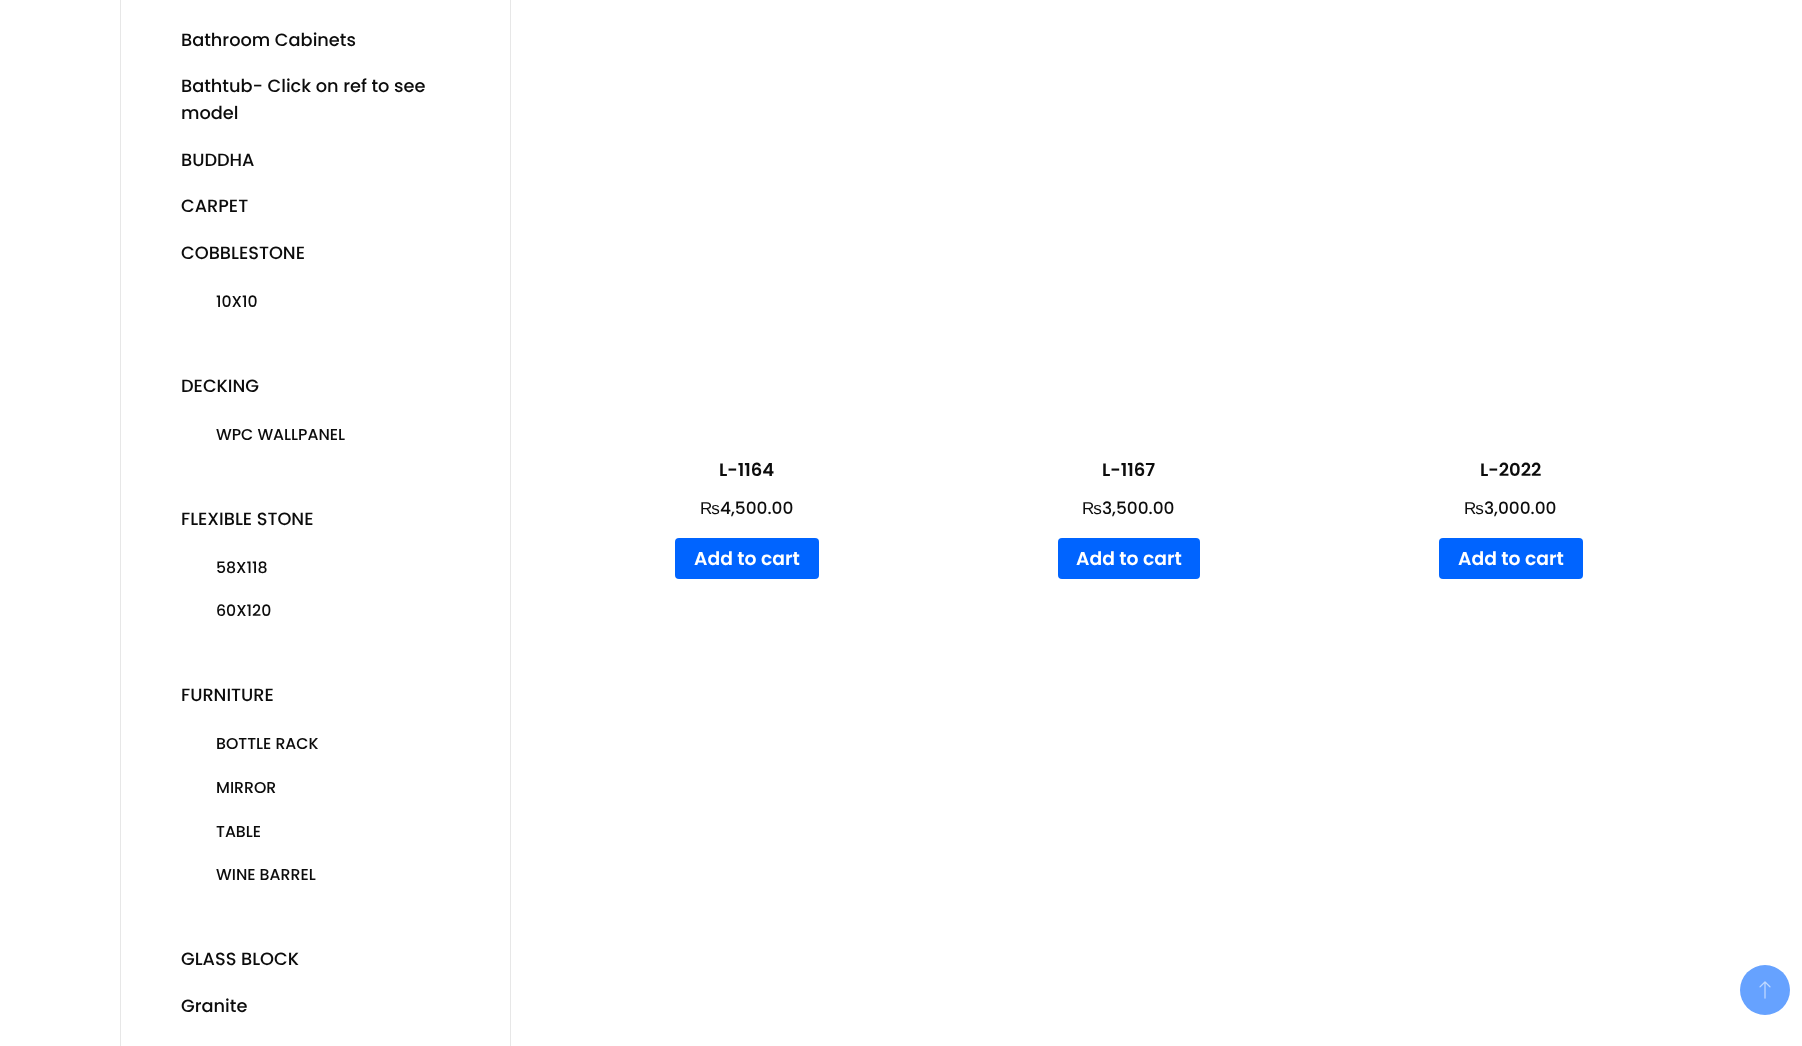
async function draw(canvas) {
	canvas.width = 1802;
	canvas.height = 1046;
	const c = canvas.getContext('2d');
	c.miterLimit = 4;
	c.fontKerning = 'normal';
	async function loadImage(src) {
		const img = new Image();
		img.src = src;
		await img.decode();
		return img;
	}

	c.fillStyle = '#fff';
	c.fillRect(0, 0, 1802, 1046);
	c.strokeStyle = '#e7e7e7';
	c.strokeRect(120.5, -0.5, 390, 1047);
	c.font = '500 17.75px Poppins';
	c.fillStyle = '#0c0c0c';
	for (const [text, x, y] of [
		['Bathroom Cabinets', 181, 46],
		['Bathtub- Click on ref to see', 181, 92],
		['model', 181, 119],
		['BUDDHA', 181, 166],
		['CARPET', 181, 212],
		['COBBLESTONE', 181, 259],
	]) {
		c.fillText(text, x, y);
	}
	c.font = '500 15.75px Poppins';
	c.fillText('10X10', 216, 307);
	c.font = '500 17.75px Poppins';
	c.fillText('DECKING', 181, 392);
	c.font = '500 15.75px Poppins';
	c.fillText('WPC WALLPANEL', 216, 440);
	c.font = '500 17.75px Poppins';
	c.fillText('FLEXIBLE STONE', 181, 525);
	c.font = '500 15.75px Poppins';
	c.fillText('58X118', 216, 573);
	c.fillText('60X120', 216, 616);
	c.font = '500 17.75px Poppins';
	c.fillText('FURNITURE', 181, 701);
	c.font = '500 15.75px Poppins';
	for (const [text, x, y] of [
		['BOTTLE RACK', 216, 749],
		['MIRROR', 216, 793],
		['TABLE', 216, 837],
		['WINE BARREL', 216, 880],
	]) {
		c.fillText(text, x, y);
	}
	c.font = '500 17.75px Poppins';
	c.fillText('GLASS BLOCK', 181, 965);
	c.fillText('Granite', 181, 1012);
	c.font = '600 18px Poppins';
	c.fillText('L-1164', 719, 476);
	c.font = '17px Liberation Sans';
	c.fillText('₨', 700, 514);
	c.font = '500 17px Poppins';
	c.fillText('4,500.00', 720, 514);
	c.fillStyle = '#0064ff';
	c.beginPath();
	c.roundRect(675, 538, 144, 41, 4);
	c.fill();
	c.font = '600 18.75px Poppins';
	c.fillStyle = '#fff';
	c.fillText('Add to cart', 694, 565);
	c.font = '600 18px Poppins';
	c.fillStyle = '#0c0c0c';
	c.fillText('L-1167', 1102, 476);
	c.font = '17px Liberation Sans';
	c.fillText('₨', 1082, 514);
	c.font = '500 17px Poppins';
	c.fillText('3,500.00', 1102, 514);
	c.fillStyle = '#0064ff';
	c.beginPath();
	c.roundRect(1058, 538, 142, 41, 4);
	c.fill();
	c.font = '600 18.75px Poppins';
	c.fillStyle = '#fff';
	c.fillText('Add to cart', 1076, 565);
	c.font = '600 18px Poppins';
	c.fillStyle = '#0c0c0c';
	c.fillText('L-2022', 1480, 476);
	c.font = '17px Liberation Sans';
	c.fillText('₨', 1464, 514);
	c.font = '500 17px Poppins';
	c.fillText('3,000.00', 1484, 514);
	c.fillStyle = '#0064ff';
	c.beginPath();
	c.roundRect(1439, 538, 144, 41, 4);
	c.fill();
	c.font = '600 18.75px Poppins';
	c.fillStyle = '#fff';
	c.fillText('Add to cart', 1458, 565);
	c.fillStyle = '#66a2ff';
	c.beginPath();
	c.arc(1765, 990, 25, 0, 2 * Math.PI);
	c.fill();
	c.drawImage(await loadImage('img1.png'), 1759, 981, 12, 18);
}

draw(document.querySelector('canvas'));
